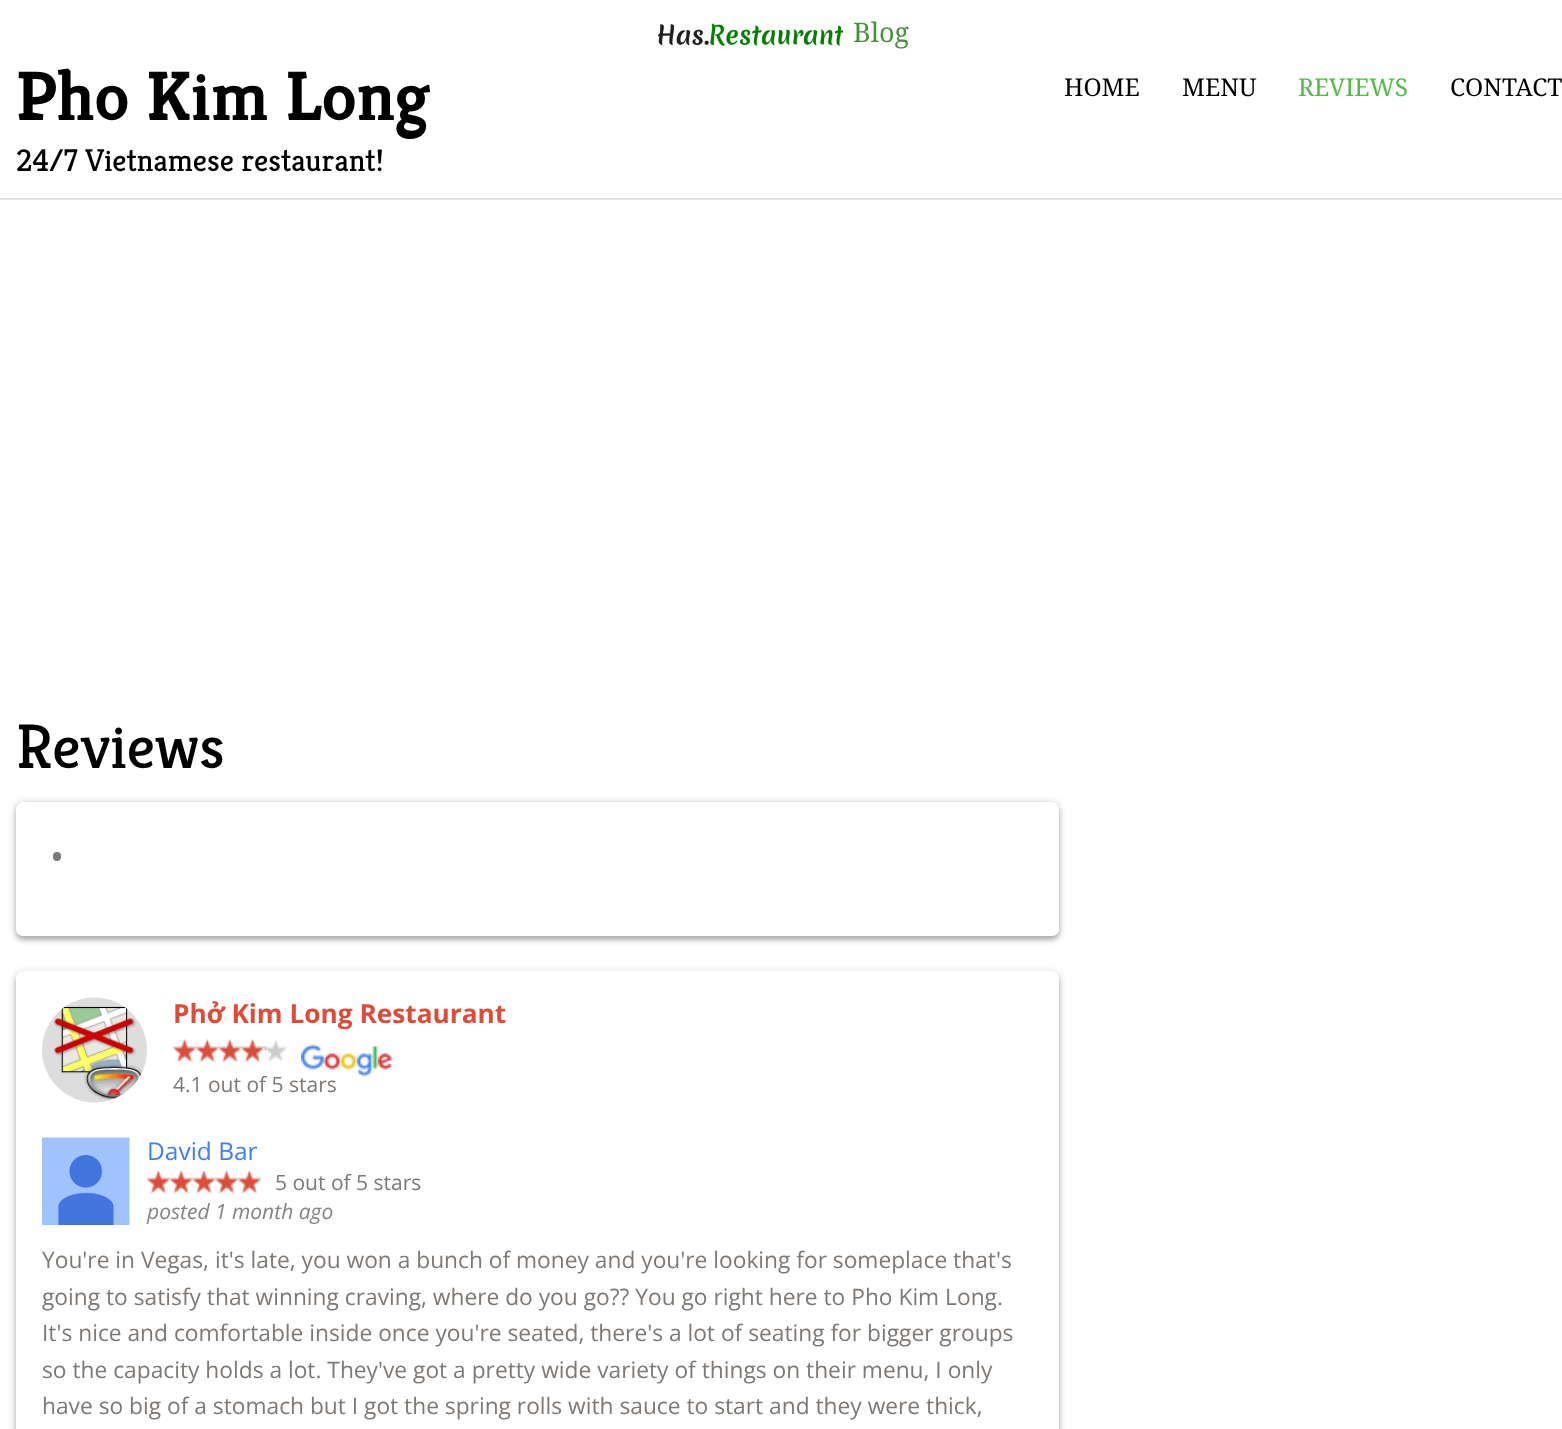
async function draw(canvas) {
	canvas.width = 1562;
	canvas.height = 1429;
	const c = canvas.getContext('2d');
	c.miterLimit = 4;
	c.fontKerning = 'normal';
	async function loadImage(src) {
		const img = new Image();
		img.src = src;
		await img.decode();
		return img;
	}

	c.fillStyle = '#fff';
	c.fillRect(0, 0, 1562, 1429);
	c.fillStyle = '#e2e2e2';
	c.fillRect(0, 198, 1562, 2);
	c.drawImage(await loadImage('img1.png'), 657, 23, 187, 23);
	c.font = '27px Droid Serif';
	c.fillStyle = '#45933a';
	c.fillText('Blog', 853, 42);
	c.font = 'bold 70px Kreon';
	c.fillStyle = '#000';
	c.fillText('Pho Kim Long', 16, 120);
	c.font = '31.5px Kreon';
	c.fillText('24/7 Vietnamese restaurant!', 16, 171);
	c.font = '24.5px Droid Serif';
	c.fillText('HOME', 1064, 96);
	c.fillText('MENU', 1182, 96);
	c.fillStyle = '#57b94a';
	c.fillText('REVIEWS', 1298, 96);
	c.fillStyle = '#000';
	c.fillText('CONTACT', 1450, 96);
	c.font = '63px Kreon';
	c.fillText('Reviews', 16, 768);
	c.fillStyle = '#00000033';
	c.filter = 'blur(4.5px)';
	c.beginPath();
	c.roundRect(16, 803, 1043, 135, 7);
	c.fill();
	c.filter = 'none';
	c.filter = 'blur(2px)';
	c.beginPath();
	c.roundRect(16, 805, 1043, 135, 7);
	c.fill();
	c.filter = 'none';
	c.fillStyle = '#fff';
	c.beginPath();
	c.roundRect(16, 802, 1043, 134, 7);
	c.fill();
	c.fillStyle = '#7e7975';
	c.beginPath();
	c.roundRect(53, 852, 8, 9, 4);
	c.fill();
	c.fillStyle = '#00000033';
	c.filter = 'blur(4.5px)';
	c.beginPath();
	c.roundRect(16, 973, 1043, 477, 7);
	c.fill();
	c.filter = 'none';
	c.filter = 'blur(2px)';
	c.beginPath();
	c.roundRect(16, 975, 1043, 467, 7);
	c.fill();
	c.filter = 'none';
	c.fillStyle = '#fff';
	c.beginPath();
	c.roundRect(16, 971, 1043, 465, 7);
	c.fill();
	c.drawImage(await loadImage('img2.png'), 42, 997, 105, 106);
	c.font = 'bold 26.25px Open Sans';
	c.fillStyle = '#dd4c39';
	c.fillText('Phở Kim Long Restaurant', 173, 1023);
	c.drawImage(await loadImage('img3.png'), 173, 1039, 114, 23);
	c.drawImage(await loadImage('img4.png'), 173, 1039, 93, 24);
	c.drawImage(await loadImage('img5.png'), 301, 1044, 91, 33);
	c.font = '21px Open Sans';
	c.fillStyle = '#7e7975';
	c.fillText('4.1 out of 5 stars', 173, 1092);
	c.drawImage(await loadImage('img6.png'), 42, 1137, 88, 88);
	c.font = '24.5px Open Sans';
	c.fillStyle = '#427fed';
	c.fillText('David Bar', 147, 1160);
	c.drawImage(await loadImage('img7.png'), 147, 1170, 114, 24);
	c.drawImage(await loadImage('img8.png'), 147, 1170, 114, 24);
	c.font = '21px Open Sans';
	c.fillStyle = '#7e7975';
	c.fillText('5 out of 5 stars', 275, 1190);
	c.font = 'italic 21px Open Sans';
	c.fillStyle = '#848484';
	c.fillText('posted 1 month ago', 147, 1219);
	c.font = '22.75px Open Sans';
	c.fillStyle = '#7e7975';
	for (const [text, x, y] of [
		['You\'re in Vegas, it\'s late, you won a bunch of money and you\'re looking for someplace that\'s', 42, 1268],
		['going to satisfy that winning craving, where do you go?? You go right here to Pho Kim Long.', 42, 1305],
		['It\'s nice and comfortable inside once you\'re seated, there\'s a lot of seating for bigger groups', 42, 1341],
		['so the capacity holds a lot. They\'ve got a pretty wide variety of things on their menu, I only', 42, 1378],
		['have so big of a stomach but I got the spring rolls with sauce to start and they were thick,', 42, 1414],
	]) {
		c.fillText(text, x, y);
	}
}

draw(document.querySelector('canvas'));
